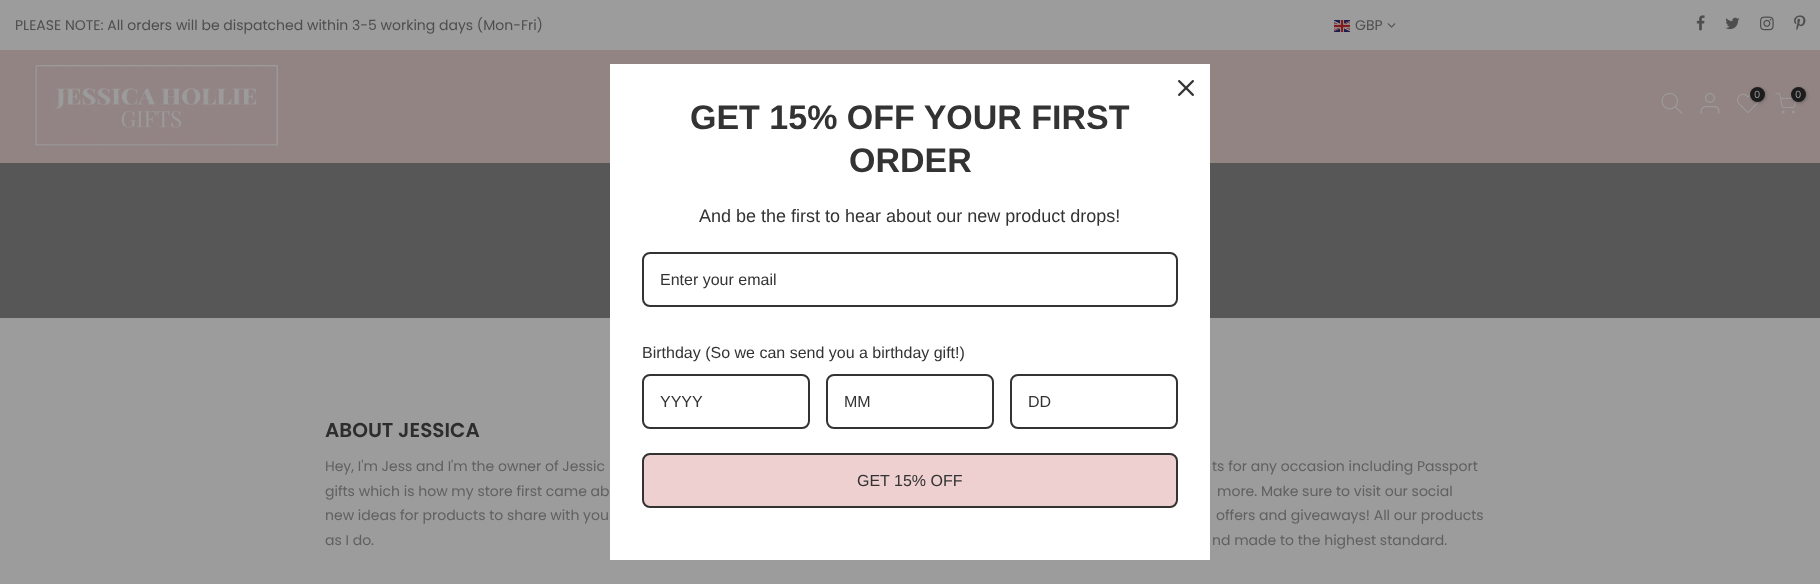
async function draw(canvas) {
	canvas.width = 1820;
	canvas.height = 584;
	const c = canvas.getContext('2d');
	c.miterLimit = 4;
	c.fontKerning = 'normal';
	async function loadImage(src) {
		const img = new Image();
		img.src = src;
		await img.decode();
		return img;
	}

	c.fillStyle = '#9c9c9c';
	c.fillRect(0, 0, 1820, 584);
	c.font = '14px Poppins';
	c.fillStyle = '#4e4e4e';
	c.fillText('PLEASE NOTE: All orders will be dispatched within 3-5 working days (Mon-Fri)', 15, 30);
	c.drawImage(await loadImage('img1.png'), 1334, 20, 16, 12);
	c.fillText('GBP', 1355, 30);
	c.drawImage(await loadImage('img2.png'), 1387, 23, 9, 5);
	c.drawImage(await loadImage('img3.png'), 1696, 15, 9, 16);
	c.drawImage(await loadImage('img4.png'), 1725, 17, 15, 13);
	c.drawImage(await loadImage('img5.png'), 1760, 16, 14, 15);
	c.drawImage(await loadImage('img6.png'), 1794, 15, 12, 16);
	c.fillStyle = '#938484';
	c.fillRect(0, 50, 1820, 113);
	c.drawImage(await loadImage('img7.png'), 34, 64, 245, 83);
	c.drawImage(await loadImage('img8.png'), 1661, 93, 22, 21);
	c.drawImage(await loadImage('img9.png'), 1700, 93, 20, 21);
	c.drawImage(await loadImage('img10.png'), 1737, 93, 22, 20);
	c.fillStyle = '#1c1c1c4d';
	c.filter = 'blur(1.5px)';
	c.beginPath();
	c.roundRect(1751, 88, 15, 15, 7.5);
	c.fill();
	c.filter = 'none';
	c.fillStyle = '#1c1c1c';
	c.beginPath();
	c.arc(1757.5, 94.5, 7.5, 0, 2 * Math.PI);
	c.fill();
	c.font = '10px Poppins';
	c.fillStyle = '#9c9c9c';
	c.fillText('0', 1754, 98);
	c.drawImage(await loadImage('img11.png'), 1775, 93, 21, 21);
	c.fillStyle = '#1c1c1c4d';
	c.filter = 'blur(1.5px)';
	c.beginPath();
	c.roundRect(1792, 88, 15, 15, 7.5);
	c.fill();
	c.filter = 'none';
	c.fillStyle = '#1c1c1c';
	c.beginPath();
	c.arc(1798.5, 94.5, 7.5, 0, 2 * Math.PI);
	c.fill();
	c.fillStyle = '#9c9c9c';
	c.fillText('0', 1795, 98);
	c.fillStyle = '#575757';
	c.fillRect(0, 163, 1820, 155);
	c.font = '600 20px Poppins';
	c.fillStyle = '#2d2d2d';
	c.fillText('ABOUT JESSICA', 325, 437);
	c.font = '14px Poppins';
	c.fillStyle = '#606060';
	for (const [text, x, y] of [
		['Hey, I\'m Jess and I\'m the owner of Jessic', 325, 471],
		['gifts which is how my store first came ab', 325, 496],
		['new ideas for products to share with you', 325, 520],
		['as I do.', 325, 545],
		['ts for any occasion including Passport', 1212, 471],
		['more. Make sure to visit our social', 1217, 496],
		['offers and giveaways! All our products', 1216, 520],
		['nd made to the highest standard.', 1212, 545],
	]) {
		c.fillText(text, x, y);
	}
	c.fillStyle = '#fff';
	c.fillRect(610, 64, 600, 496);
	c.drawImage(await loadImage('img12.png'), 1178, 80, 16, 16);
	c.font = 'bold 34px Liberation Sans';
	c.fillStyle = '#333';
	c.fillText('GET 15% OFF YOUR FIRST', 690, 129);
	c.fillText('ORDER', 849, 172);
	c.font = '18px Liberation Sans';
	c.fillText('And be the first to hear about our new product drops!', 699, 222);
	c.beginPath();
	c.roundRect(643, 253, 534, 53, 7);
	c.strokeStyle = '#333';
	c.lineWidth = 2;
	c.stroke();
	c.font = '16px Liberation Sans';
	c.fillText('Enter your email', 660, 285);
	c.fillText('Birthday (So we can send you a birthday gift!)', 642, 358);
	c.beginPath();
	c.roundRect(643, 375, 166, 53, 7);
	c.stroke();
	c.fillText('YYYY', 660, 407);
	c.beginPath();
	c.roundRect(827, 375, 166, 53, 7);
	c.stroke();
	c.fillText('MM', 844, 407);
	c.beginPath();
	c.roundRect(1011, 375, 166, 53, 7);
	c.stroke();
	c.fillText('DD', 1028, 407);
	c.fillStyle = '#eed0d0';
	c.beginPath();
	c.roundRect(643, 454, 534, 53, 7);
	c.fill();
	c.stroke();
	c.fillStyle = '#333';
	c.fillText('GET 15% OFF', 857, 486);
}

draw(document.querySelector('canvas'));
